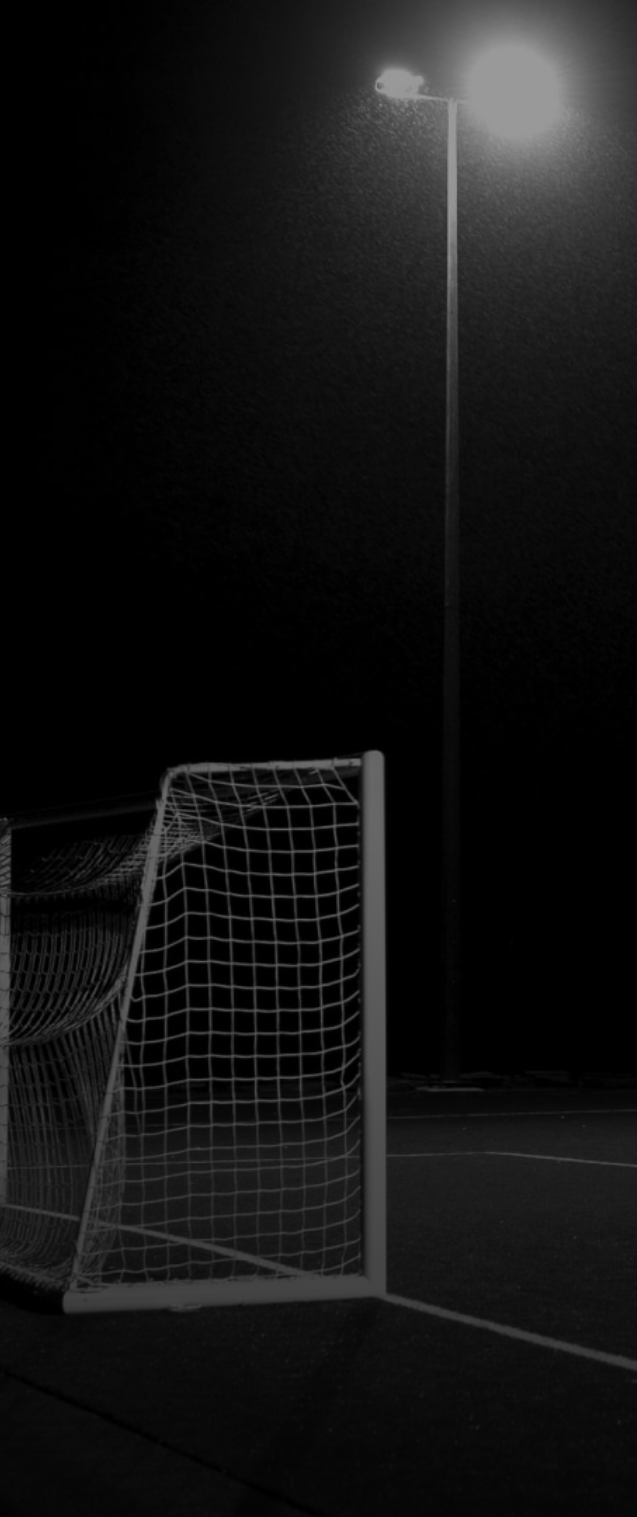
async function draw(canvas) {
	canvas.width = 637;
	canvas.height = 1517;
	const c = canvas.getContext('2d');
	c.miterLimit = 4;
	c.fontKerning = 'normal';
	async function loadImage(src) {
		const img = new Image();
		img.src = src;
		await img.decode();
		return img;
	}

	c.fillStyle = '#fff';
	c.fillRect(0, 0, 637, 1517);
	c.drawImage(await loadImage('img1.png'), 0, 0, 637, 1517);
}

draw(document.querySelector('canvas'));
